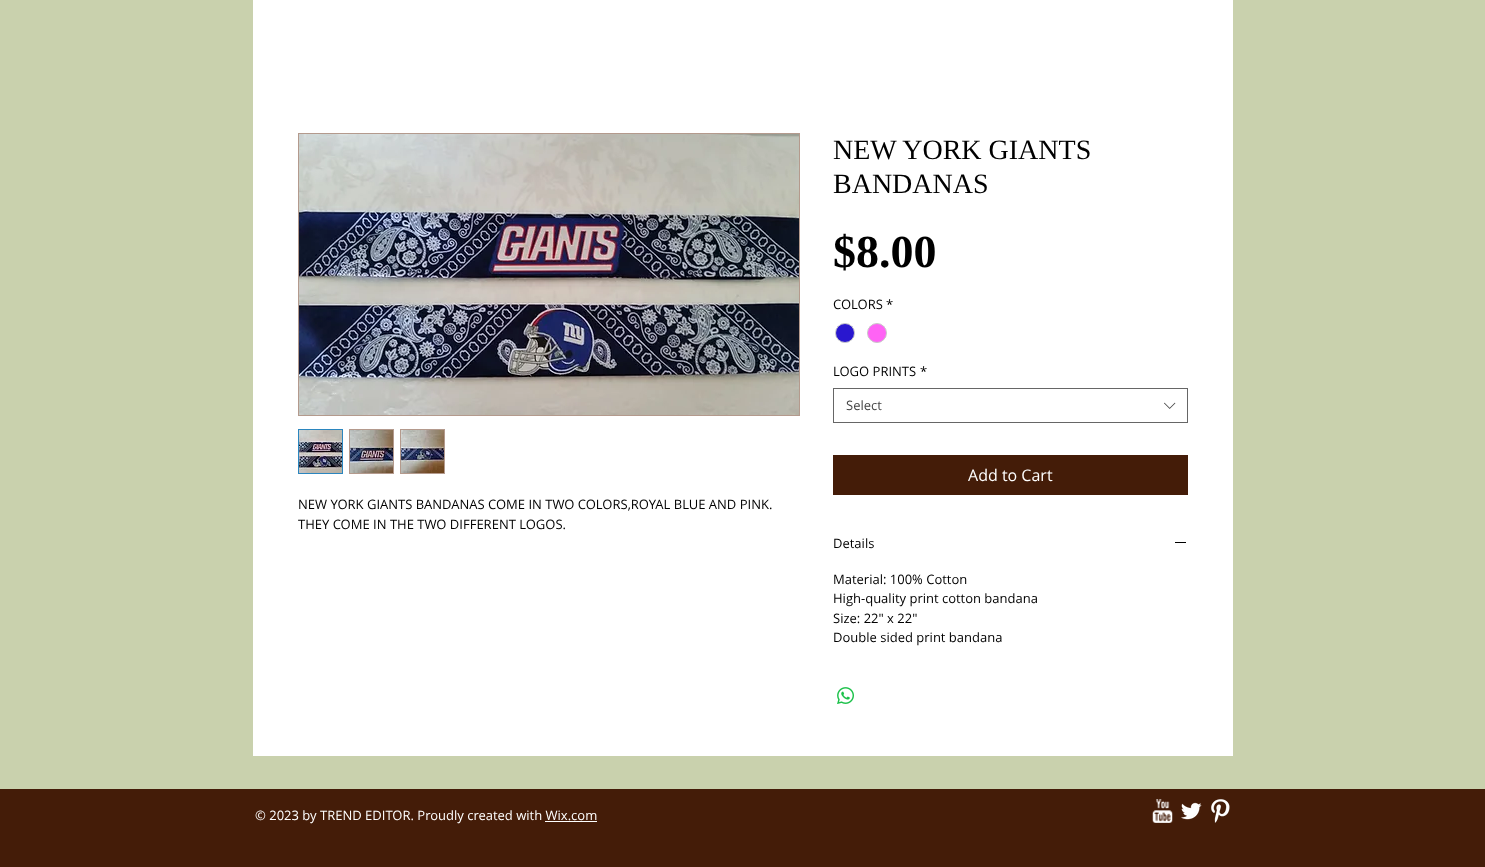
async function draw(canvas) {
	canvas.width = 1485;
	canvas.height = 867;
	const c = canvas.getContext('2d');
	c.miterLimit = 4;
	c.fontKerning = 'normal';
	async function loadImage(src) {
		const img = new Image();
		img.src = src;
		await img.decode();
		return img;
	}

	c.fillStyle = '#c9d1ad';
	c.fillRect(0, 0, 1485, 867);
	c.fillStyle = '#fff';
	c.fillRect(253, 0, 980, 756);
	c.strokeStyle = '#b49a8d';
	c.strokeRect(298.5, 133.5, 501, 282);
	c.drawImage(await loadImage('img1.png'), 299, 134, 500, 281);
	c.strokeStyle = '#2b86bf';
	c.strokeRect(298.5, 429.5, 44, 44);
	c.drawImage(await loadImage('img2.png'), 299, 430, 43, 43);
	c.fillStyle = '#b49a8d';
	c.fillRect(349, 429, 45, 45);
	c.drawImage(await loadImage('img3.png'), 350, 430, 43, 43);
	c.fillRect(400, 429, 45, 45);
	c.drawImage(await loadImage('img4.png'), 401, 430, 43, 43);
	c.font = '13px Open Sans';
	c.fillStyle = '#000';
	c.fillText('NEW YORK GIANTS BANDANAS COME IN TWO COLORS,ROYAL BLUE AND PINK.', 298, 509);
	c.fillText('THEY COME IN THE TWO DIFFERENT LOGOS.', 298, 529);
	c.font = '28px Liberation Serif';
	c.fillText('NEW YORK GIANTS', 833, 159);
	c.fillText('BANDANAS', 833, 193);
	c.font = 'bold 46px Liberation Serif';
	c.fillText('$8.00', 833, 267);
	c.font = '13px Open Sans';
	c.fillText('COLORS', 833, 309);
	c.fillText('*', 886, 309);
	c.fillStyle = '#2917cf';
	c.beginPath();
	c.arc(845, 333, 9.5, 0, 2 * Math.PI);
	c.fill();
	c.strokeStyle = '#c9c9c9';
	c.stroke();
	c.fillStyle = '#ff63f5';
	c.beginPath();
	c.arc(877, 333, 9.5, 0, 2 * Math.PI);
	c.fill();
	c.stroke();
	c.fillStyle = '#000';
	c.fillText('LOGO PRINTS', 833, 376);
	c.fillText('*', 920, 376);
	c.strokeStyle = '#666';
	c.strokeRect(833.5, 388.5, 354, 34);
	c.fillStyle = '#444';
	c.fillText('Select', 846, 410);
	c.drawImage(await loadImage('img5.png'), 1164, 402, 12, 7);
	c.fillStyle = '#441c08';
	c.fillRect(833, 455, 355, 40);
	c.font = '16px Open Sans';
	c.fillStyle = '#fff';
	c.fillText('Add to Cart', 968, 481);
	c.font = '13px Open Sans';
	c.fillStyle = '#000';
	c.fillText('Details', 833, 548);
	c.fillRect(1175, 542, 11, 1);
	for (const [text, x, y] of [
		['Material: 100% Cotton', 833, 584],
		['High-quality print cotton bandana', 833, 603],
		['Size: 22" x 22"', 833, 623],
		['Double sided print bandana', 833, 642],
	]) {
		c.fillText(text, x, y);
	}
	c.drawImage(await loadImage('img6.png'), 837, 687, 17, 17);
	c.fillStyle = '#441c08';
	c.fillRect(0, 789, 1485, 78);
	c.fillStyle = '#fff';
	c.fillText('© 2023 by TREND EDITOR. Proudly created with Wix.com', 255, 820);
	c.fillRect(545, 821, 52, 1);
	c.drawImage(await loadImage('img7.png'), 1152, 799, 21, 24);
	c.drawImage(await loadImage('img8.png'), 1181, 802, 21, 18);
	c.drawImage(await loadImage('img9.png'), 1211, 799, 19, 24);
}

draw(document.querySelector('canvas'));
